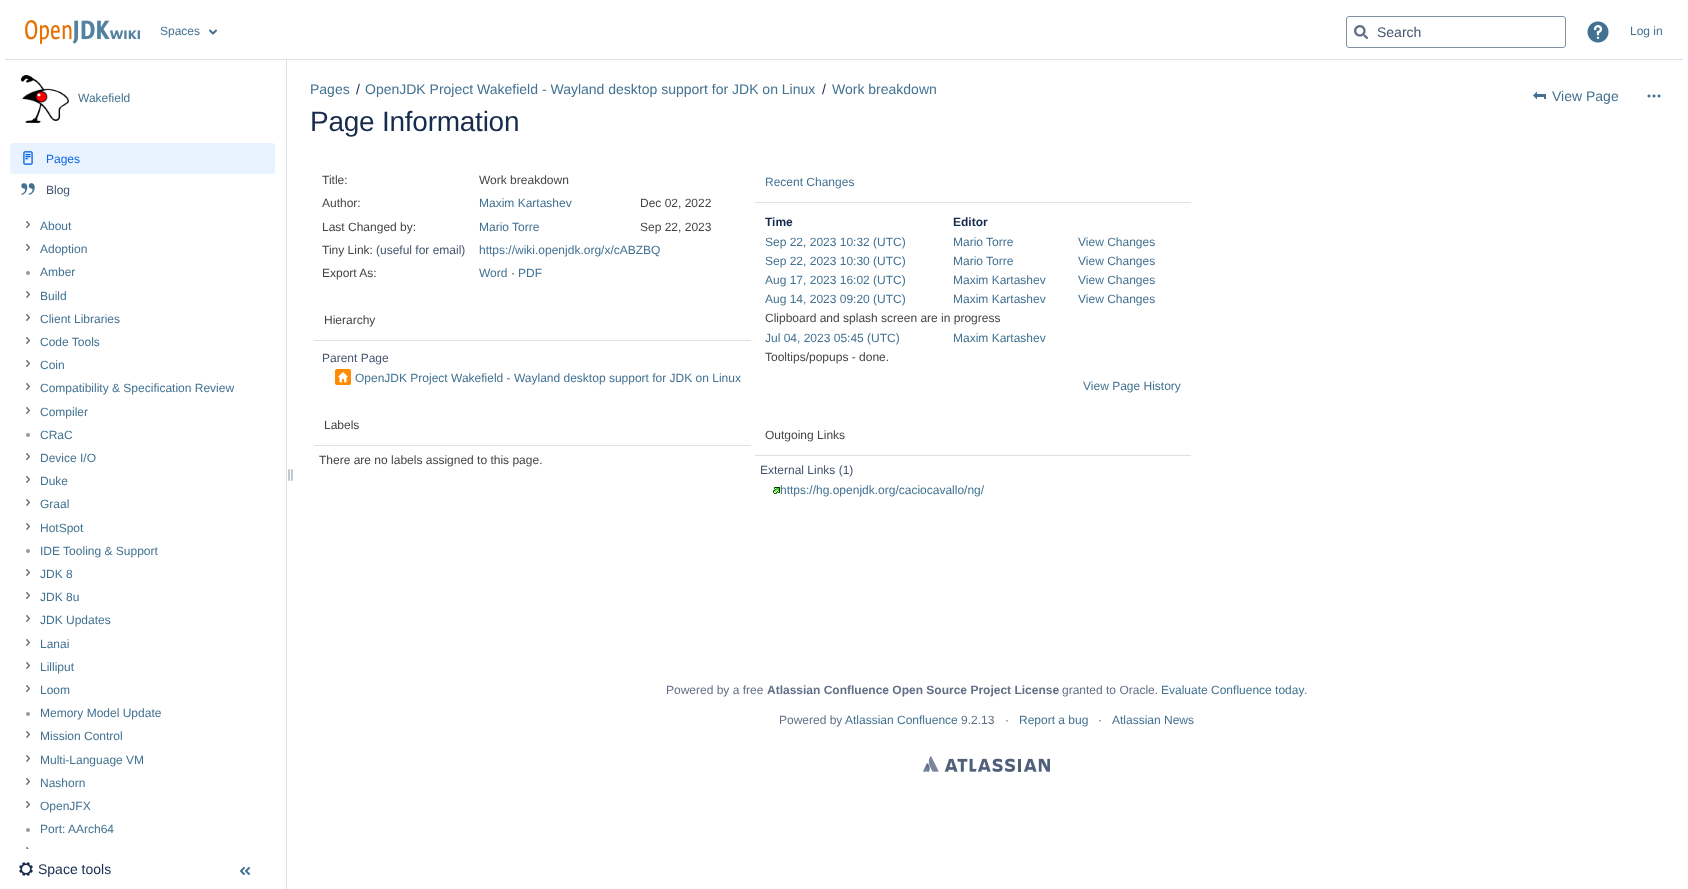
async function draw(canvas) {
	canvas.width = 1688;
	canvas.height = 889;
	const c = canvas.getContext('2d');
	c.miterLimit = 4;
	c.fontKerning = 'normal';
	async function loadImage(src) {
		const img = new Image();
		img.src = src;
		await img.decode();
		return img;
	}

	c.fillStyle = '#fff';
	c.fillRect(0, 0, 1688, 889);
	c.fillStyle = '#dde0e5';
	c.fillRect(5, 59, 1678, 1);
	c.drawImage(await loadImage('img1.png'), 25, 20, 115, 24);
	c.font = '12px Liberation Sans';
	c.fillStyle = '#427191';
	c.fillText('Spaces', 160, 35);
	c.drawImage(await loadImage('img2.png'), 209, 29, 8, 6);
	c.beginPath();
	c.roundRect(1346.5, 16.5, 219, 31, 2.5);
	c.strokeStyle = '#8590a2';
	c.stroke();
	c.drawImage(await loadImage('img3.png'), 1354, 25, 14, 14);
	c.font = '14px Liberation Sans';
	c.fillStyle = '#44546f';
	c.fillText('Search', 1377, 37);
	c.drawImage(await loadImage('img4.png'), 1587, 21, 22, 22);
	c.font = '12px Liberation Sans';
	c.fillStyle = '#427191';
	c.fillText('Log in', 1630, 35);
	c.drawImage(await loadImage('img5.png'), 21, 75, 48, 48);
	c.fillText('Wakefield', 78, 102);
	c.fillStyle = '#e9f2ff';
	c.beginPath();
	c.roundRect(10, 143, 265, 31, 3);
	c.fill();
	c.drawImage(await loadImage('img6.png'), 23, 151, 10, 14);
	c.fillStyle = '#0c66e4';
	c.fillText('Pages', 46, 163);
	c.drawImage(await loadImage('img7.png'), 21, 183, 14, 12);
	c.fillStyle = '#44546f';
	c.fillText('Blog', 46, 194);
	c.drawImage(await loadImage('img8.png'), 26, 221, 4, 7);
	c.fillStyle = '#427191';
	c.fillText('About', 40, 230);
	c.drawImage(await loadImage('img8.png'), 26, 244, 4, 7);
	c.fillText('Adoption', 40, 253);
	c.fillStyle = '#999';
	c.beginPath();
	c.arc(28, 273, 2, 0, 2 * Math.PI);
	c.fill();
	c.fillStyle = '#427191';
	c.fillText('Amber', 40, 276);
	c.drawImage(await loadImage('img8.png'), 26, 291, 4, 7);
	c.fillText('Build', 40, 300);
	c.drawImage(await loadImage('img8.png'), 26, 314, 4, 7);
	c.fillText('Client Libraries', 40, 323);
	c.drawImage(await loadImage('img8.png'), 26, 337, 4, 7);
	c.fillText('Code Tools', 40, 346);
	c.drawImage(await loadImage('img8.png'), 26, 360, 4, 7);
	c.fillText('Coin', 40, 369);
	c.drawImage(await loadImage('img8.png'), 26, 383, 4, 7);
	c.fillText('Compatibility & Specification Review', 40, 392);
	c.drawImage(await loadImage('img8.png'), 26, 407, 4, 7);
	c.fillText('Compiler', 40, 416);
	c.fillStyle = '#999';
	c.beginPath();
	c.arc(28, 435, 2, 0, 2 * Math.PI);
	c.fill();
	c.fillStyle = '#427191';
	c.fillText('CRaC', 40, 439);
	c.drawImage(await loadImage('img8.png'), 26, 453, 4, 7);
	c.fillText('Device I/O', 40, 462);
	c.drawImage(await loadImage('img8.png'), 26, 476, 4, 7);
	c.fillText('Duke', 40, 485);
	c.drawImage(await loadImage('img8.png'), 26, 499, 4, 7);
	c.fillText('Graal', 40, 508);
	c.drawImage(await loadImage('img8.png'), 26, 523, 4, 7);
	c.fillText('HotSpot', 40, 532);
	c.fillStyle = '#999';
	c.beginPath();
	c.arc(28, 551, 2, 0, 2 * Math.PI);
	c.fill();
	c.fillStyle = '#427191';
	c.fillText('IDE Tooling & Support', 40, 555);
	c.drawImage(await loadImage('img8.png'), 26, 569, 4, 7);
	c.fillText('JDK 8', 40, 578);
	c.drawImage(await loadImage('img8.png'), 26, 592, 4, 7);
	c.fillText('JDK 8u', 40, 601);
	c.drawImage(await loadImage('img8.png'), 26, 615, 4, 7);
	c.fillText('JDK Updates', 40, 624);
	c.drawImage(await loadImage('img8.png'), 26, 639, 4, 7);
	c.fillText('Lanai', 40, 648);
	c.drawImage(await loadImage('img8.png'), 26, 662, 4, 7);
	c.fillText('Lilliput', 40, 671);
	c.drawImage(await loadImage('img8.png'), 26, 685, 4, 7);
	c.fillText('Loom', 40, 694);
	c.fillStyle = '#999';
	c.beginPath();
	c.arc(28, 714, 2, 0, 2 * Math.PI);
	c.fill();
	c.fillStyle = '#427191';
	c.fillText('Memory Model Update', 40, 717);
	c.drawImage(await loadImage('img8.png'), 26, 731, 4, 7);
	c.fillText('Mission Control', 40, 740);
	c.drawImage(await loadImage('img8.png'), 26, 755, 4, 7);
	c.fillText('Multi-Language VM', 40, 764);
	c.drawImage(await loadImage('img8.png'), 26, 778, 4, 7);
	c.fillText('Nashorn', 40, 787);
	c.drawImage(await loadImage('img8.png'), 26, 801, 4, 7);
	c.fillText('OpenJFX', 40, 810);
	c.fillStyle = '#999';
	c.beginPath();
	c.arc(28, 830, 2, 0, 2 * Math.PI);
	c.fill();
	c.fillStyle = '#427191';
	c.fillText('Port: AArch64', 40, 833);
	c.drawImage(await loadImage('img9.png'), 26, 847, 3, 2);
	c.drawImage(await loadImage('img10.png'), 288, 469, 5, 12);
	c.fillStyle = '#dde0e5';
	c.fillRect(286, 60, 1, 829);
	c.drawImage(await loadImage('img11.png'), 19, 862, 14, 14);
	c.font = '14px Liberation Sans';
	c.fillStyle = '#172b4d';
	c.fillText('Space tools', 38, 874);
	c.drawImage(await loadImage('img12.png'), 240, 867, 10, 8);
	c.fillStyle = '#427191';
	c.fillText('Pages', 310, 94);
	c.fillStyle = '#172b4d';
	c.fillText('/', 356, 94);
	c.fillStyle = '#427191';
	c.fillText('OpenJDK Project Wakefield - Wayland desktop support for JDK on Linux', 365, 94);
	c.fillStyle = '#172b4d';
	c.fillText('/', 822, 94);
	c.fillStyle = '#427191';
	c.fillText('Work breakdown', 832, 94);
	c.letterSpacing = '-0.25px';
	c.font = '28px Liberation Sans';
	c.fillStyle = '#172b4d';
	c.fillText('Page Information', 310, 131);
	c.drawImage(await loadImage('img13.png'), 1533, 91, 13, 9);
	c.letterSpacing = '0px';
	c.font = '14px Liberation Sans';
	c.fillStyle = '#427191';
	c.fillText('View Page', 1552, 101);
	c.drawImage(await loadImage('img14.png'), 1647, 94, 14, 4);
	c.font = '12px Liberation Sans';
	c.fillStyle = '#444';
	for (const [text, x, y] of [
		['Title:', 322, 184],
		['Work breakdown', 479, 184],
		['Author:', 322, 207],
	]) {
		c.fillText(text, x, y);
	}
	c.fillStyle = '#427191';
	c.fillText('Maxim Kartashev', 479, 207);
	c.fillStyle = '#444';
	c.fillText('Dec 02, 2022', 640, 207);
	c.fillText('Last Changed by:', 322, 231);
	c.fillStyle = '#427191';
	c.fillText('Mario Torre', 479, 231);
	c.fillStyle = '#444';
	c.fillText('Sep 22, 2023', 640, 231);
	c.fillText('Tiny Link:', 322, 254);
	c.fillStyle = '#44546f';
	c.fillText('(useful for email)', 376, 254);
	c.fillStyle = '#427191';
	c.fillText('https://wiki.openjdk.org/x/cABZBQ', 479, 254);
	c.fillStyle = '#444';
	c.fillText('Export As:', 322, 277);
	c.fillStyle = '#427191';
	c.fillText('Word', 479, 277);
	c.fillStyle = '#444';
	c.fillText('·', 511, 277);
	c.fillStyle = '#427191';
	c.fillText('PDF', 518, 277);
	c.fillStyle = '#dde0e5';
	c.fillRect(314, 340, 437, 1);
	c.fillStyle = '#444';
	c.fillText('Hierarchy', 324, 324);
	c.fillStyle = '#44546f';
	c.fillText('Parent Page', 322, 362);
	c.drawImage(await loadImage('img15.png'), 335, 369, 16, 16);
	c.fillStyle = '#427191';
	c.fillText('OpenJDK Project Wakefield - Wayland desktop support for JDK on Linux', 355, 382);
	c.fillStyle = '#dde0e5';
	c.fillRect(314, 445, 437, 1);
	c.fillStyle = '#444';
	c.fillText('Labels', 324, 429);
	c.fillText('There are no labels assigned to this page.', 319, 464);
	c.fillStyle = '#dde0e5';
	c.fillRect(755, 202, 436, 1);
	c.fillStyle = '#427191';
	c.fillText('Recent Changes', 765, 186);
	c.font = 'bold 12px Liberation Sans';
	c.fillStyle = '#172b4d';
	c.fillText('Time', 765, 226);
	c.fillText('Editor', 953, 226);
	c.font = '12px Liberation Sans';
	c.fillStyle = '#427191';
	for (const [text, x, y] of [
		['Sep 22, 2023 10:32 (UTC)', 765, 246],
		['Mario Torre', 953, 246],
		['View Changes', 1078, 246],
		['Sep 22, 2023 10:30 (UTC)', 765, 265],
		['Mario Torre', 953, 265],
		['View Changes', 1078, 265],
		['Aug 17, 2023 16:02 (UTC)', 765, 284],
		['Maxim Kartashev', 953, 284],
		['View Changes', 1078, 284],
		['Aug 14, 2023 09:20 (UTC)', 765, 303],
		['Maxim Kartashev', 953, 303],
		['View Changes', 1078, 303],
	]) {
		c.fillText(text, x, y);
	}
	c.fillStyle = '#444';
	c.fillText('Clipboard and splash screen are in progress', 765, 322);
	c.fillStyle = '#427191';
	c.fillText('Jul 04, 2023 05:45 (UTC)', 765, 342);
	c.fillText('Maxim Kartashev', 953, 342);
	c.fillStyle = '#444';
	c.fillText('Tooltips/popups - done.', 765, 361);
	c.fillStyle = '#427191';
	c.fillText('View Page History', 1083, 390);
	c.fillStyle = '#dde0e5';
	c.fillRect(755, 455, 436, 1);
	c.fillStyle = '#444';
	c.fillText('Outgoing Links', 765, 439);
	c.fillStyle = '#44546f';
	c.fillText('External Links (1)', 760, 474);
	c.drawImage(await loadImage('img16.png'), 773, 487, 7, 7);
	c.fillStyle = '#427191';
	c.fillText('https://hg.openjdk.org/caciocavallo/ng/', 780, 494);
	c.fillStyle = '#626f86';
	c.fillText('Powered by a free', 666, 694);
	c.font = 'bold 12px Liberation Sans';
	c.fillText('Atlassian Confluence Open Source Project License', 767, 694);
	c.font = '12px Liberation Sans';
	c.fillText('granted to Oracle.', 1062, 694);
	c.fillStyle = '#427191';
	c.fillText('Evaluate Confluence today', 1161, 694);
	c.fillStyle = '#626f86';
	c.fillText('.', 1304, 694);
	c.fillText('Powered by', 779, 724);
	c.fillStyle = '#427191';
	c.fillText('Atlassian Confluence', 845, 724);
	c.fillStyle = '#626f86';
	c.fillText('9.2.13', 961, 724);
	c.fillText('·', 1005, 724);
	c.fillStyle = '#427191';
	c.fillText('Report a bug', 1019, 724);
	c.fillStyle = '#626f86';
	c.fillText('·', 1098, 724);
	c.fillStyle = '#427191';
	c.fillText('Atlassian News', 1112, 724);
	c.drawImage(await loadImage('img17.png'), 923, 756, 127, 16);
}

draw(document.querySelector('canvas'));
